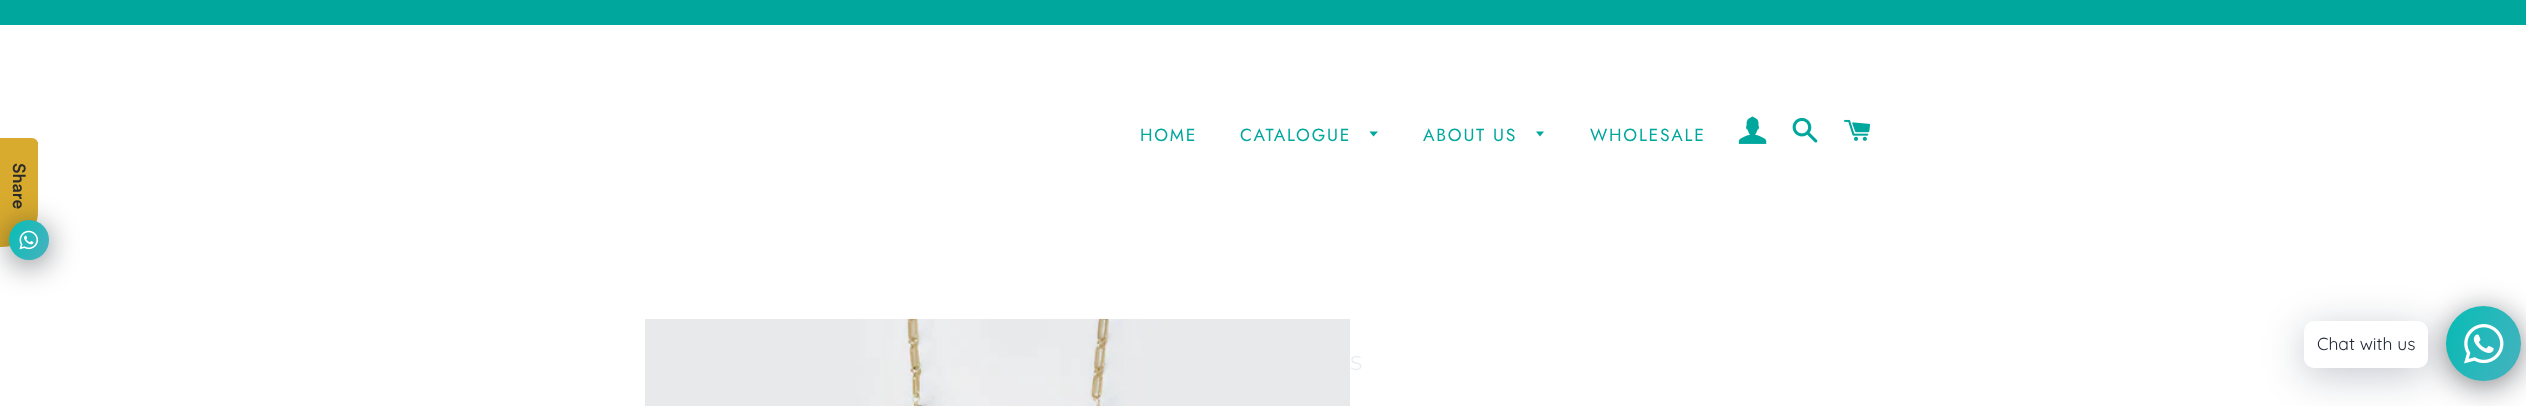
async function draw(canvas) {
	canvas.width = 2526;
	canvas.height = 406;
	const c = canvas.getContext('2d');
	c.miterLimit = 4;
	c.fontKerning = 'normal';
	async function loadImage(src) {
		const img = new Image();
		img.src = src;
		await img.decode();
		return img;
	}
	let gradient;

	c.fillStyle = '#fff';
	c.fillRect(0, 0, 2526, 406);
	c.fillStyle = '#d8ab2e';
	c.beginPath();
	c.moveTo(0, 247);
	c.lineTo(0, 138);
	c.lineTo(32, 138);
	c.bezierCurveTo(35, 138, 38, 141, 38, 143);
	c.lineTo(38, 212);
	c.bezierCurveTo(38, 231, 22, 247, 2, 247);
	c.closePath();
	c.fill();
	c.font = '500 17.5px Circular';
	c.fillStyle = '#2a2c2b';
	c.save();
	c.translate(13, 163);
	c.rotate(90 * Math.PI / 180);
	c.fillText('Share', 0, 0);
	c.restore();
	c.fillStyle = '#02061080';
	c.filter = 'blur(15px)';
	c.beginPath();
	c.roundRect(9, 225, 40, 40, 20);
	c.fill();
	c.filter = 'none';
	gradient = c.createLinearGradient(4.7, 229, 53, 251);
	gradient.addColorStop(0, '#06beb6');
	gradient.addColorStop(1, '#48b1bf');
	c.fillStyle = gradient;
	c.beginPath();
	c.arc(29, 240, 20, 0, 2 * Math.PI);
	c.fill();
	c.drawImage(await loadImage('img1.png'), 19, 230, 19, 20);
	c.fillStyle = '#00a79d';
	c.fillRect(0, 0, 2526, 25);
	c.letterSpacing = '1.75px';
	c.font = '17.5px Jost';
	c.fillText('HOME', 1140, 141);
	c.fillText('CATALOGUE', 1240, 141);
	c.beginPath();
	c.moveTo(1369.5, 131.5);
	c.lineTo(1373.5, 136.5);
	c.lineTo(1378, 131.5);
	c.closePath();
	c.fill();
	c.letterSpacing = '0px';
	c.font = '20px Montserrat';
	c.fillStyle = '#eaecee';
	c.fillText('S', 1350, 370);
	c.letterSpacing = '1.75px';
	c.font = '17.5px Jost';
	c.fillStyle = '#00a79d';
	c.fillText('ABOUT US', 1423, 141);
	c.beginPath();
	c.moveTo(1536, 131.5);
	c.lineTo(1540, 136.5);
	c.lineTo(1544, 131.5);
	c.closePath();
	c.fill();
	c.fillText('WHOLESALE', 1590, 141);
	c.drawImage(await loadImage('img2.png'), 1738, 116, 29, 28);
	c.drawImage(await loadImage('img3.png'), 1792, 117, 26, 26);
	c.drawImage(await loadImage('img4.png'), 1844, 119, 26, 22);
	c.drawImage(await loadImage('img5.png'), 645, 318, 705, 88);
	c.fillStyle = '#02061080';
	c.filter = 'blur(15px)';
	c.beginPath();
	c.roundRect(2446, 311, 75, 75, 37.5);
	c.fill();
	c.filter = 'none';
	gradient = c.createLinearGradient(2439, 323, 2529, 365);
	gradient.addColorStop(0, '#06beb6');
	gradient.addColorStop(1, '#48b1bf');
	c.fillStyle = gradient;
	c.beginPath();
	c.arc(2483.5, 343.5, 37.5, 0, 2 * Math.PI);
	c.fill();
	c.fillStyle = '#00122e3d';
	c.filter = 'blur(20px)';
	c.beginPath();
	c.roundRect(2304, 329, 124, 46, 10);
	c.fill();
	c.filter = 'none';
	c.fillStyle = '#fff';
	c.beginPath();
	c.roundRect(2304, 321, 124, 47, 10);
	c.fill();
	c.letterSpacing = '0px';
	c.font = '300 17.5px Quicksand';
	c.fillStyle = '#1e2433';
	c.fillText('Chat with us', 2317, 350);
	c.drawImage(await loadImage('img6.png'), 2464, 324, 40, 40);
}

draw(document.querySelector('canvas'));
